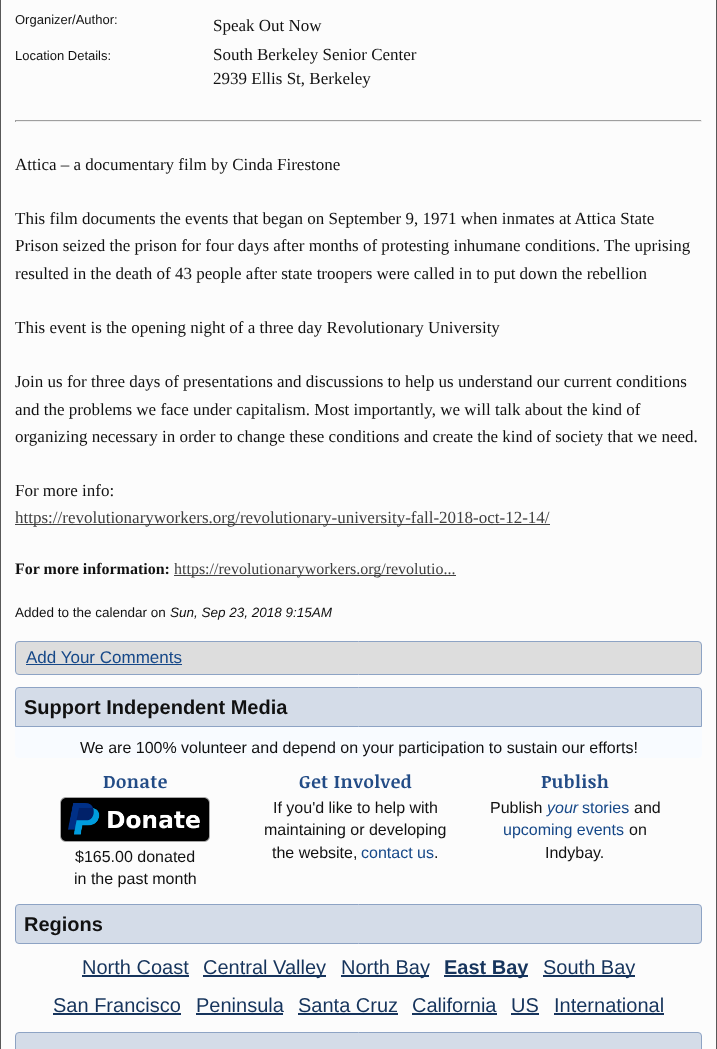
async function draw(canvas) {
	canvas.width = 717;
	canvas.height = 1049;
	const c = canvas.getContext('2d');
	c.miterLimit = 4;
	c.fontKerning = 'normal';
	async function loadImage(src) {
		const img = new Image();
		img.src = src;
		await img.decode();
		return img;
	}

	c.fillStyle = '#fcfcfc';
	c.fillRect(0, 0, 717, 1049);
	c.fillStyle = '#585858';
	c.fillRect(716, 0, 1, 1049);
	c.fillRect(0, 0, 1, 1049);
	c.font = '13px Liberation Sans';
	c.fillStyle = '#111';
	c.fillText('Organizer/Author:', 15, 24);
	c.font = '17px Liberation Serif';
	c.fillText('Speak Out Now', 213, 31);
	c.font = '13px Liberation Sans';
	c.fillText('Location Details:', 15, 60);
	c.font = '17px Liberation Serif';
	c.fillText('South Berkeley Senior Center', 213, 60);
	c.fillText('2939 Ellis St, Berkeley', 213, 84);
	for (const [x, y, w, h, color] of [
		[15, 120, 687, 1, '#9f9f9f'],
		[701, 120, 1, 2, '#eee'],
		[15, 121, 687, 1, '#eee'],
		[15, 120, 1, 2, '#9f9f9f'],
	]) {
		c.fillStyle = color;
		c.fillRect(x, y, w, h);
	}
	c.fillStyle = '#111';
	for (const [text, x, y] of [
		['Attica – a documentary film by Cinda Firestone', 15, 170],
		['This film documents the events that began on September 9, 1971 when inmates at Attica State', 15, 224],
		['Prison seized the prison for four days after months of protesting inhumane conditions. The uprising', 15, 251],
		['resulted in the death of 43 people after state troopers were called in to put down the rebellion', 15, 279],
		['This event is the opening night of a three day Revolutionary University', 15, 333],
		['Join us for three days of presentations and discussions to help us understand our current conditions', 15, 387],
		['and the problems we face under capitalism. Most importantly, we will talk about the kind of', 15, 415],
		['organizing necessary in order to change these conditions and create the kind of society that we need.', 15, 442],
		['For more info:', 15, 496],
	]) {
		c.fillText(text, x, y);
	}
	c.fillStyle = '#404040';
	c.fillRect(15, 524, 535, 1);
	c.fillText('https://revolutionaryworkers.org/revolutionary-university-fall-2018-oct-12-14/', 15, 523);
	c.font = 'bold 16px Liberation Serif';
	c.fillStyle = '#111';
	c.fillText('For more information:', 15, 574);
	c.fillStyle = '#404040';
	c.fillRect(174, 575, 282, 1);
	c.font = '16px Liberation Serif';
	c.fillText('https://revolutionaryworkers.org/revolutio...', 174, 574);
	c.font = '13.5px Liberation Sans';
	c.fillStyle = '#111';
	c.fillText('Added to the calendar on', 15, 617);
	c.font = 'italic 13.5px Liberation Sans';
	c.fillText('Sun, Sep 23, 2018 9:15AM', 170, 617);
	c.fillStyle = '#ddd';
	c.beginPath();
	c.roundRect(15.5, 641.5, 686, 33, 3.5);
	c.fill();
	c.strokeStyle = '#8da3c4';
	c.stroke();
	c.font = '17px Liberation Sans';
	c.fillStyle = '#164888';
	c.fillText('Add Your Comments', 26, 663);
	c.fillRect(26, 664, 156, 1);
	c.fillStyle = '#f8fbff';
	c.beginPath();
	c.roundRect(15, 687, 687, 71, [0, 0, 4, 4]);
	c.fill();
	c.fillStyle = '#d4dce8';
	c.beginPath();
	c.roundRect(15.5, 687.5, 686, 39, [3.5, 3.5, 0, 0]);
	c.fill();
	c.stroke();
	c.font = 'bold 20px Liberation Sans';
	c.fillStyle = '#111';
	c.fillText('Support Independent Media', 24, 714);
	c.font = '16px Liberation Sans';
	c.fillText('We are 100% volunteer and depend on your participation to sustain our efforts!', 80, 753);
	c.letterSpacing = '0.5px';
	c.font = 'bold 18px Noticia Text';
	c.fillStyle = '#234c86';
	c.fillText('Donate', 103, 788);
	c.drawImage(await loadImage('img1.png'), 60, 797, 150, 45);
	c.letterSpacing = '0px';
	c.font = '16px Liberation Sans';
	c.fillStyle = '#111';
	c.fillText('$165.00 donated', 75, 862);
	c.fillText('in the past month', 74, 884);
	c.letterSpacing = '0.5px';
	c.font = 'bold 18px Noticia Text';
	c.fillStyle = '#234c86';
	c.fillText('Get Involved', 299, 788);
	c.letterSpacing = '0px';
	c.font = '16px Liberation Sans';
	c.fillStyle = '#111';
	for (const [text, x, y] of [
		['If you\'d like to help with', 273, 813],
		['maintaining or developing', 264, 835],
		['the website,', 272, 858],
	]) {
		c.fillText(text, x, y);
	}
	c.fillStyle = '#164888';
	c.fillText('contact us', 361, 858);
	c.fillStyle = '#111';
	c.fillText('.', 434, 858);
	c.letterSpacing = '0.5px';
	c.font = 'bold 18px Noticia Text';
	c.fillStyle = '#234c86';
	c.fillText('Publish', 541, 788);
	c.letterSpacing = '0px';
	c.font = '16px Liberation Sans';
	c.fillStyle = '#111';
	c.fillText('Publish', 490, 813);
	c.font = 'italic 16px Liberation Sans';
	c.fillStyle = '#164888';
	c.fillText('your', 547, 813);
	c.font = '16px Liberation Sans';
	c.fillText('stories', 582, 813);
	c.fillStyle = '#111';
	c.fillText('and', 634, 813);
	c.fillStyle = '#164888';
	c.fillText('upcoming events', 503, 835);
	c.fillStyle = '#111';
	c.fillText('on', 629, 835);
	c.fillText('Indybay.', 545, 858);
	c.fillStyle = '#d4dce8';
	c.beginPath();
	c.roundRect(15.5, 904.5, 686, 39, 3.5);
	c.fill();
	c.stroke();
	c.font = 'bold 20px Liberation Sans';
	c.fillStyle = '#111';
	c.fillText('Regions', 24, 931);
	c.font = '20px Liberation Sans';
	c.fillStyle = '#16345c';
	c.fillText('North Coast', 82, 974);
	c.fillRect(82, 975, 107, 2);
	c.fillRect(203, 975, 123, 2);
	c.fillText('Central Valley', 203, 974);
	c.fillRect(341, 975, 88, 2);
	c.fillText('North Bay', 341, 974);
	c.fillRect(444, 975, 84, 2);
	c.font = 'bold 20px Liberation Sans';
	c.fillText('East Bay', 444, 974);
	c.fillRect(543, 975, 92, 2);
	c.font = '20px Liberation Sans';
	c.fillText('South Bay', 543, 974);
	c.fillText('San Francisco', 53, 1012);
	c.fillRect(53, 1013, 128, 2);
	c.fillText('Peninsula', 196, 1012);
	c.fillRect(196, 1013, 87, 2);
	c.fillText('Santa Cruz', 298, 1012);
	c.fillRect(298, 1013, 100, 2);
	c.fillText('California', 412, 1012);
	c.fillRect(412, 1013, 85, 2);
	c.fillText('US', 511, 1012);
	c.fillRect(511, 1013, 28, 2);
	c.fillText('International', 554, 1012);
	c.fillRect(554, 1013, 110, 2);
	c.fillStyle = '#d4dce8';
	c.beginPath();
	c.roundRect(15.5, 1032.5, 686, 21, 3.5);
	c.fill();
	c.stroke();
}

draw(document.querySelector('canvas'));
